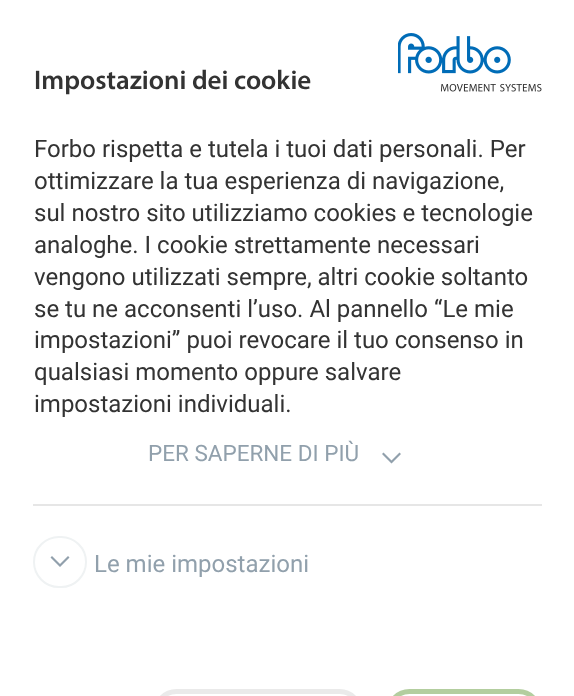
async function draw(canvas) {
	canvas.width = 574;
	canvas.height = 696;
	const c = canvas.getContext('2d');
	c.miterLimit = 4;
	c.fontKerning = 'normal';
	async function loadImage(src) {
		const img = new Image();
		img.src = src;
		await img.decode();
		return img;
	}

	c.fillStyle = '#fff';
	c.fillRect(0, 0, 574, 696);
	c.drawImage(await loadImage('img1.png'), 398, 33, 144, 59);
	c.font = '600 27px Myriad';
	c.fillStyle = '#333';
	c.fillText('Impostazioni dei cookie', 34, 89);
	c.font = '24px Roboto';
	for (const [text, x, y] of [
		['Forbo rispetta e tutela i tuoi dati personali. Per', 34, 157],
		['ottimizzare la tua esperienza di navigazione,', 34, 189],
		['sul nostro sito utilizziamo cookies e tecnologie', 34, 221],
		['analoghe. I cookie strettamente necessari', 34, 253],
		['vengono utilizzati sempre, altri cookie soltanto', 34, 285],
		['se tu ne acconsenti l’uso. Al pannello “Le mie', 34, 317],
		['impostazioni” puoi revocare il tuo consenso in', 34, 348],
		['qualsiasi momento oppure salvare', 34, 380],
		['impostazioni individuali.', 34, 412],
	]) {
		c.fillText(text, x, y);
	}
	c.fillStyle = '#e6e6e6';
	c.fillRect(33, 504, 509, 2);
	c.font = '22.5px Roboto';
	c.fillStyle = '#91a0ac';
	c.fillText('PER SAPERNE DI PIÙ', 148, 461);
	c.beginPath();
	c.moveTo(391.5, 463.5);
	c.lineTo(382, 454);
	c.lineTo(383.5, 452.5);
	c.lineTo(391.5, 460.5);
	c.lineTo(399.5, 452.5);
	c.lineTo(401, 454);
	c.closePath();
	c.fill();
	c.beginPath();
	c.roundRect(34, 537, 52, 50, 25);
	c.strokeStyle = '#eff2f3';
	c.lineWidth = 2;
	c.stroke();
	c.beginPath();
	c.moveTo(60, 567);
	c.lineTo(50.5, 557.5);
	c.lineTo(52, 556);
	c.lineTo(60, 564);
	c.lineTo(68, 556);
	c.lineTo(69.5, 557.5);
	c.closePath();
	c.fill();
	c.font = '24px Roboto';
	c.fillText('Le mie impostazioni', 94, 572);
	c.beginPath();
	c.roundRect(155.5, 691.5, 205, 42, 32);
	c.strokeStyle = '#eaeaea';
	c.lineWidth = 5;
	c.stroke();
	c.beginPath();
	c.roundRect(388.5, 691.5, 151, 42, 32);
	c.strokeStyle = '#b3ce9f';
	c.stroke();
}

draw(document.querySelector('canvas'));
